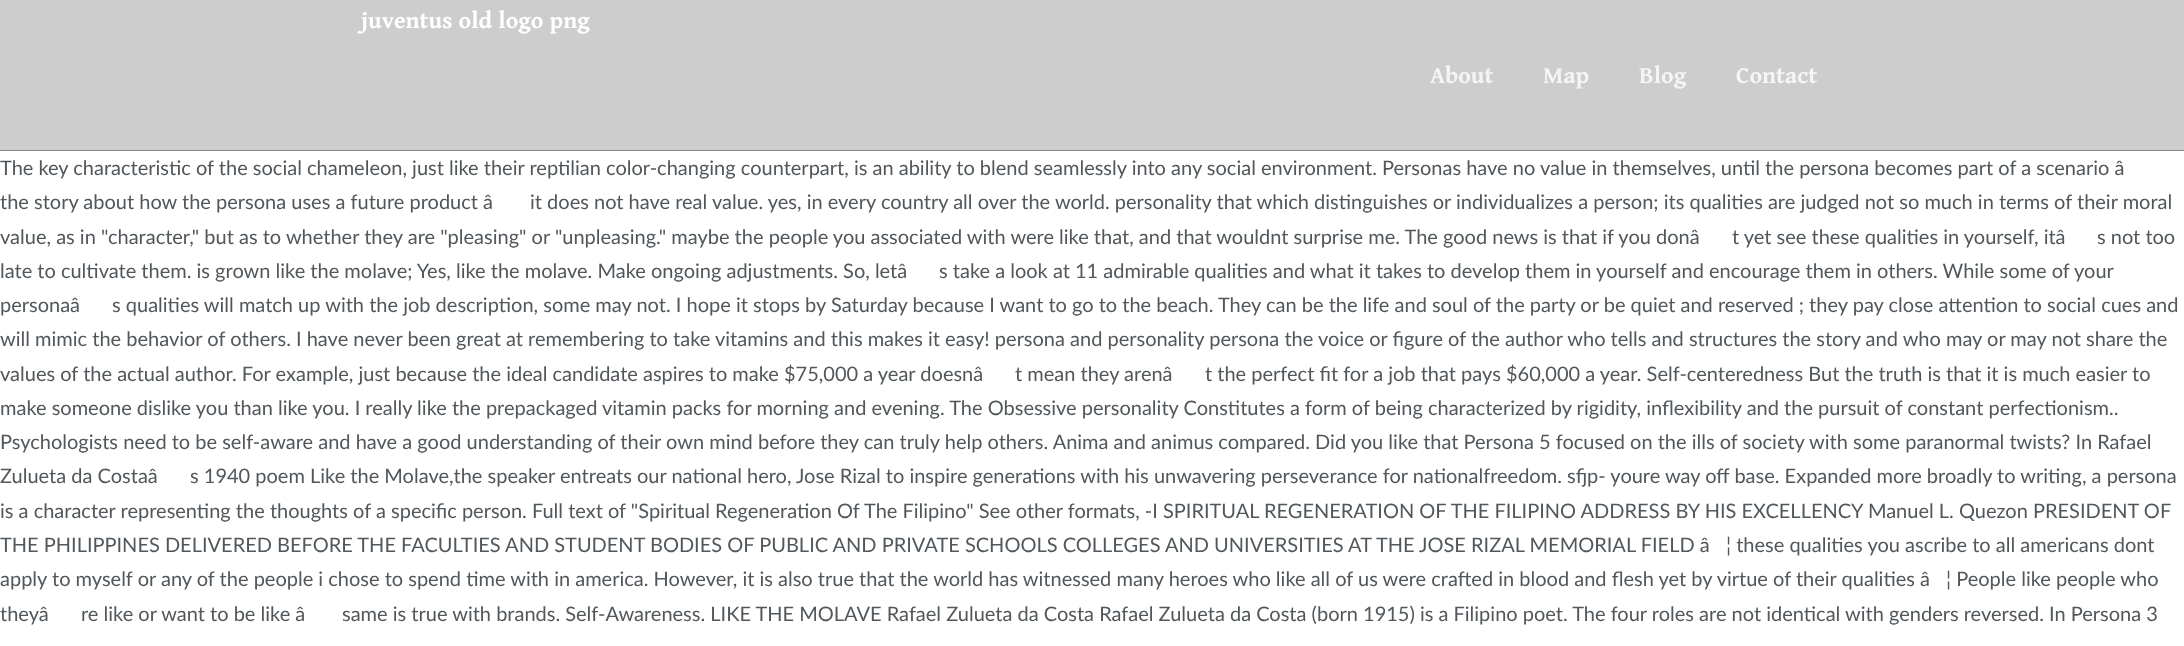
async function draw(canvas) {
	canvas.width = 2184;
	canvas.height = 646;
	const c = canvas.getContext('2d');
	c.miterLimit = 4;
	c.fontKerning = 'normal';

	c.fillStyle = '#fff';
	c.fillRect(0, 0, 2184, 646);
	c.fillStyle = '#868787';
	c.fillRect(0, 150, 2184, 1);
	c.fillStyle = '#cdcdcd';
	c.fillRect(0, 0, 2184, 150);
	c.font = 'bold 23.75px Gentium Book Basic';
	c.fillStyle = '#fff';
	c.fillText('juventus old logo png', 361, 28);
	c.fillStyle = '#f5f5f5';
	for (const [text, x, y] of [
		['About', 1430, 83],
		['Map', 1543, 83],
		['Blog', 1639, 83],
		['Contact', 1736, 83],
	]) {
		c.fillText(text, x, y);
	}
	c.font = '20px Lato';
	c.fillStyle = '#51575b';
	for (const [text, x, y] of [
		['The key characteristic of the social chameleon, just like their reptilian color-changing counterpart, is an ability to blend seamlessly into any social environment. Personas have no value in themselves, until the persona becomes part of a scenario â', 0, 175],
		['the story about how the persona uses a future product â', 0, 209],
		['it does not have real value. yes, in every country all over the world. personality that which distinguishes or individualizes a person; its qualities are judged not so much in terms of their moral', 530, 209],
		['value, as in "character," but as to whether they are "pleasing" or "unpleasing." maybe the people you associated with were like that, and that wouldnt surprise me. The good news is that if you donâ', 0, 244],
		['t yet see these qualities in yourself, itâ', 1732, 244],
		['s not too', 2097, 244],
		['late to cultivate them. is grown like the molave; Yes, like the molave. Make ongoing adjustments. So, letâ', 0, 278],
		['s take a look at 11 admirable qualities and what it takes to develop them in yourself and encourage them in others. While some of your', 939, 278],
		['personaâ', 0, 312],
		['s qualities will match up with the job description, some may not. I hope it stops by Saturday because I want to go to the beach. They can be the life and soul of the party or be quiet and reserved ; they pay close attention to social cues and', 112, 312],
		['will mimic the behavior of others. I have never been great at remembering to take vitamins and this makes it easy! persona and personality persona the voice or figure of the author who tells and structures the story and who may or may not share the', 0, 346],
		['values of the actual author. For example, just because the ideal candidate aspires to make $75,000 a year doesnâ', 0, 381],
		['t mean they arenâ', 1015, 381],
		['t the perfect fit for a job that pays $60,000 a year. Self-centeredness But the truth is that it is much easier to', 1205, 381],
		['make someone dislike you than like you. I really like the prepackaged vitamin packs for morning and evening. The Obsessive personality Constitutes a form of being characterized by rigidity, inflexibility and the pursuit of constant perfectionism..', 0, 415],
		['Psychologists need to be self-aware and have a good understanding of their own mind before they can truly help others. Anima and animus compared. Did you like that Persona 5 focused on the ills of society with some paranormal twists? In Rafael', 0, 449],
		['Zulueta da Costaâ', 0, 483],
		['s 1940 poem Like the Molave,the speaker entreats our national hero, Jose Rizal to inspire generations with his unwavering perseverance for nationalfreedom. sfjp- youre way off base. Expanded more broadly to writing, a persona', 190, 483],
		['is a character representing the thoughts of a specific person. Full text of "Spiritual Regeneration Of The Filipino" See other formats, -I SPIRITUAL REGENERATION OF THE FILIPINO ADDRESS BY HIS EXCELLENCY Manuel L. Quezon PRESIDENT OF', 0, 518],
		['THE PHILIPPINES DELIVERED BEFORE THE FACULTIES AND STUDENT BODIES OF PUBLIC AND PRIVATE SCHOOLS COLLEGES AND UNIVERSITIES AT THE JOSE RIZAL MEMORIAL FIELD â', 0, 552],
		['¦ these qualities you ascribe to all americans dont', 1726, 552],
		['apply to myself or any of the people i chose to spend time with in america. However, it is also true that the world has witnessed many heroes who like all of us were crafted in blood and flesh yet by virtue of their qualities â', 0, 586],
		['¦ People like people who', 1946, 586],
		['theyâ', 0, 621],
		['re like or want to be like â', 81, 621],
		['same is true with brands. Self-Awareness. LIKE THE MOLAVE Rafael Zulueta da Costa Rafael Zulueta da Costa (born 1915) is a Filipino poet. The four roles are not identical with genders reversed. In Persona 3', 342, 621],
	]) {
		c.fillText(text, x, y);
	}
}

draw(document.querySelector('canvas'));
